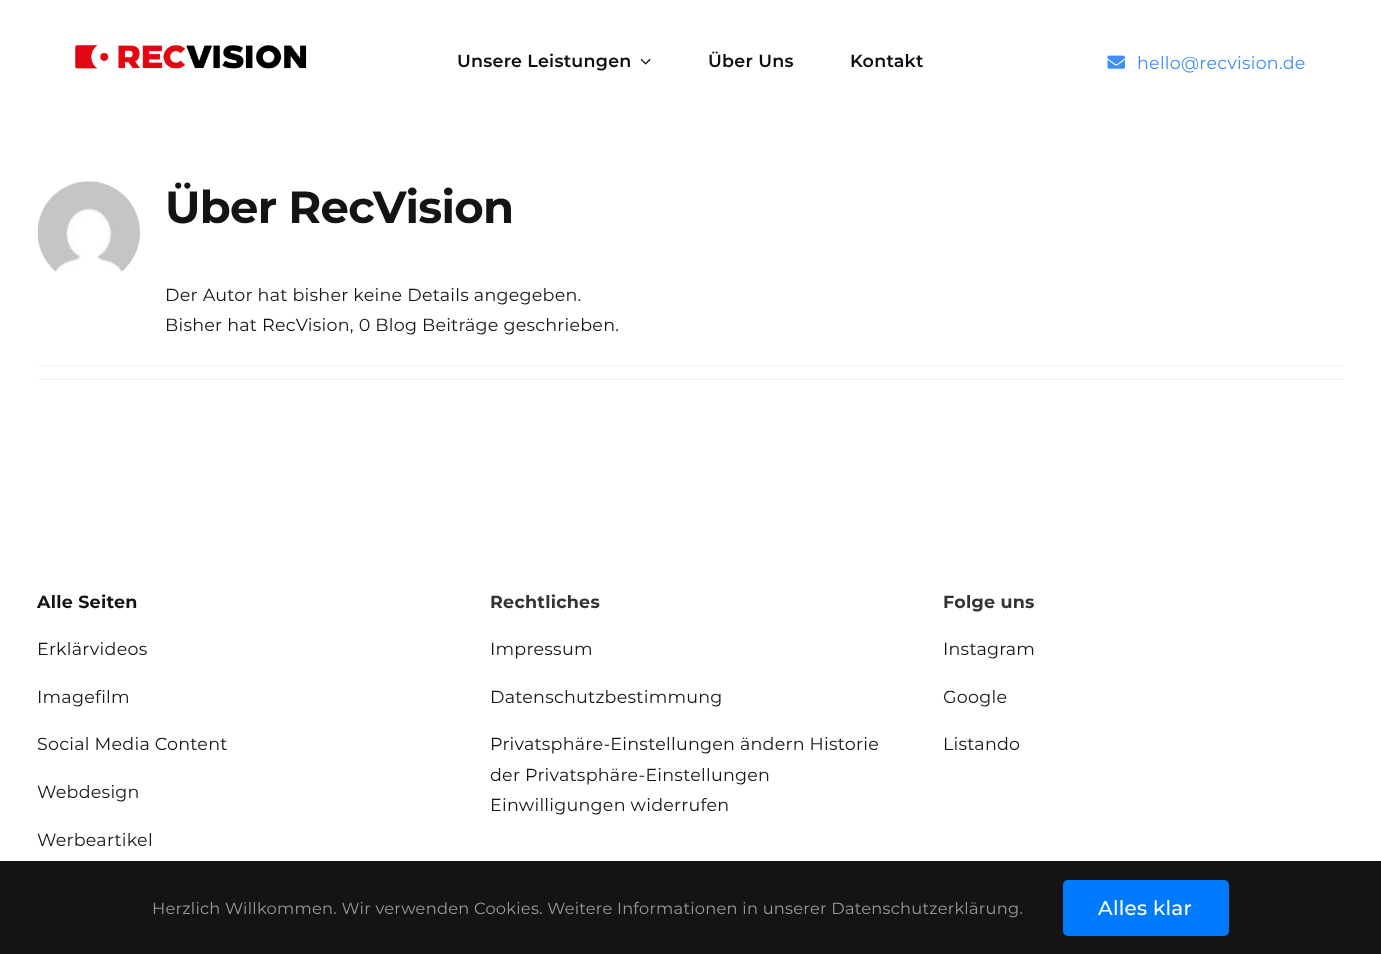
async function draw(canvas) {
	canvas.width = 1381;
	canvas.height = 954;
	const c = canvas.getContext('2d');
	c.miterLimit = 4;
	c.fontKerning = 'normal';
	async function loadImage(src) {
		const img = new Image();
		img.src = src;
		await img.decode();
		return img;
	}

	c.fillStyle = '#fff';
	c.fillRect(0, 0, 1381, 954);
	c.drawImage(await loadImage('img1.png'), 75, 45, 232, 24);
	c.letterSpacing = '0.25px';
	c.font = '600 17.5px Montserrat';
	c.fillStyle = '#0b0c11';
	c.fillText('Unsere Leistungen', 457, 67);
	c.drawImage(await loadImage('img2.png'), 640, 58, 11, 7);
	c.fillText('Über Uns', 708, 67);
	c.fillText('Kontakt', 850, 67);
	c.drawImage(await loadImage('img3.png'), 1107, 55, 18, 14);
	c.font = '17.5px Montserrat';
	c.fillStyle = '#3e8ef6';
	c.fillText('hello@recvision.de', 1137, 69);
	c.drawImage(await loadImage('img4.png'), 37, 181, 103, 91);
	c.letterSpacing = '-0.75px';
	c.font = 'bold 45px Montserrat';
	c.fillStyle = '#141414';
	c.fillText('Über RecVision', 165, 223);
	c.letterSpacing = '0.25px';
	c.font = '17.5px Montserrat';
	c.fillText('Der Autor hat bisher keine Details angegeben.', 165, 301);
	c.fillText('Bisher hat RecVision, 0 Blog Beiträge geschrieben.', 165, 331);
	c.fillStyle = '#f2f3f5';
	c.fillRect(38, 365, 1306, 1);
	c.fillRect(38, 379, 1306, 1);
	c.font = 'bold 17.5px Montserrat';
	c.fillStyle = '#141414';
	c.fillText('Alle Seiten', 37, 608);
	c.font = '17.5px Montserrat';
	for (const [text, x, y] of [
		['Erklärvideos', 37, 655],
		['Imagefilm', 37, 703],
		['Social Media Content', 37, 750],
		['Webdesign', 37, 798],
		['Werbeartikel', 37, 846],
	]) {
		c.fillText(text, x, y);
	}
	c.font = 'bold 17.5px Montserrat';
	c.fillStyle = '#333';
	c.fillText('Rechtliches', 490, 608);
	c.font = '17.5px Montserrat';
	c.fillStyle = '#141414';
	for (const [text, x, y] of [
		['Impressum', 490, 655],
		['Datenschutzbestimmung', 490, 703],
		['Privatsphäre-Einstellungen ändern Historie', 490, 750],
		['der Privatsphäre-Einstellungen', 490, 781],
		['Einwilligungen widerrufen', 490, 811],
	]) {
		c.fillText(text, x, y);
	}
	c.font = 'bold 17.5px Montserrat';
	c.fillStyle = '#333';
	c.fillText('Folge uns', 943, 608);
	c.font = '17.5px Montserrat';
	c.fillStyle = '#141414';
	for (const [text, x, y] of [
		['Instagram', 943, 655],
		['Google', 943, 703],
		['Listando', 943, 750],
	]) {
		c.fillText(text, x, y);
	}
	c.fillRect(0, 861, 1381, 93);
	c.font = '16.25px Montserrat';
	c.fillStyle = '#999';
	c.fillText('Herzlich Willkommen. Wir verwenden Cookies. Weitere Informationen in unserer Datenschutzerklärung.', 152, 914);
	c.fillStyle = '#007aff';
	c.beginPath();
	c.roundRect(1063, 880, 166, 56, 5);
	c.fill();
	c.font = '500 20px Montserrat';
	c.fillStyle = '#fff';
	c.fillText('Alles klar', 1098, 915);
}

draw(document.querySelector('canvas'));
